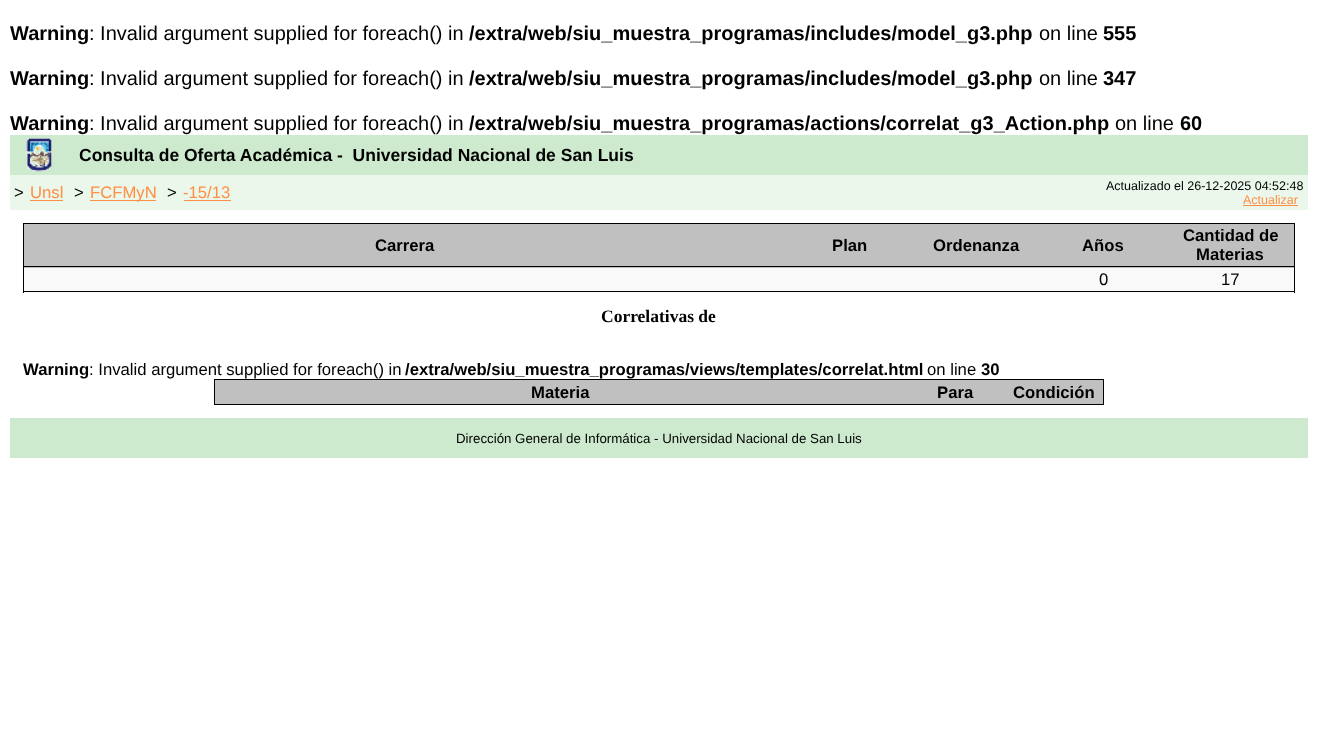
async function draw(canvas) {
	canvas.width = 1317;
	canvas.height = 737;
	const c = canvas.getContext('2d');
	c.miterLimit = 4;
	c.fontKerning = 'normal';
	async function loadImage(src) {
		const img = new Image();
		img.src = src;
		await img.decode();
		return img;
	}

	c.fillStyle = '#fff';
	c.fillRect(0, 0, 1317, 737);
	c.font = 'bold 20px Liberation Sans';
	c.fillStyle = '#000';
	c.fillText('Warning', 10, 40);
	c.font = '20px Liberation Sans';
	c.fillText(': Invalid argument supplied for foreach() in', 89, 40);
	c.font = 'bold 20px Liberation Sans';
	c.fillText('/extra/web/siu_muestra_programas/includes/model_g3.php', 469, 40);
	c.font = '20px Liberation Sans';
	c.fillText('on line', 1039, 40);
	c.font = 'bold 20px Liberation Sans';
	c.fillText('555', 1103, 40);
	c.fillText('Warning', 10, 85);
	c.font = '20px Liberation Sans';
	c.fillText(': Invalid argument supplied for foreach() in', 89, 85);
	c.font = 'bold 20px Liberation Sans';
	c.fillText('/extra/web/siu_muestra_programas/includes/model_g3.php', 469, 85);
	c.font = '20px Liberation Sans';
	c.fillText('on line', 1039, 85);
	c.font = 'bold 20px Liberation Sans';
	c.fillText('347', 1103, 85);
	c.fillText('Warning', 10, 130);
	c.font = '20px Liberation Sans';
	c.fillText(': Invalid argument supplied for foreach() in', 89, 130);
	c.font = 'bold 20px Liberation Sans';
	c.fillText('/extra/web/siu_muestra_programas/actions/correlat_g3_Action.php', 469, 130);
	c.font = '20px Liberation Sans';
	c.fillText('on line', 1115, 130);
	c.font = 'bold 20px Liberation Sans';
	c.fillText('60', 1180, 130);
	c.fillStyle = '#cdeace';
	c.fillRect(10, 135, 1298, 40);
	c.drawImage(await loadImage('img1.png'), 26, 138, 26, 34);
	c.font = 'bold 17.5px Liberation Sans';
	c.fillStyle = '#000';
	c.fillText('Consulta de Oferta Académica -  Universidad Nacional de San Luis', 79, 161);
	c.fillStyle = '#ebf7eb';
	c.fillRect(10, 175, 1298, 35);
	c.font = '16.7px Liberation Sans';
	c.fillStyle = '#000';
	c.fillText('>', 14, 198);
	c.fillStyle = '#ff8f44';
	c.fillText('Unsl', 30, 198);
	c.fillRect(30, 200, 33, 1);
	c.fillStyle = '#000';
	c.fillText('>', 74, 198);
	c.fillStyle = '#ff8f44';
	c.fillRect(90, 200, 66, 1);
	c.fillText('FCFMyN', 90, 198);
	c.fillStyle = '#000';
	c.fillText('>', 167, 198);
	c.fillStyle = '#ff8f44';
	c.fillText('-15/13', 183, 198);
	c.fillRect(184, 200, 47, 1);
	c.font = '12.5px Liberation Sans';
	c.fillStyle = '#000';
	c.fillText('Actualizado el 26-12-2025 04:52:48', 1106, 190);
	c.fillStyle = '#ff8f44';
	c.fillText('Actualizar', 1243, 204);
	for (const [x, y, w, h, color] of [
		[1243, 205, 55, 1, '#ff8f44'],
		[23, 223, 1272, 1, '#000'],
		[1294, 223, 1, 70, '#000'],
		[23, 223, 1, 70, '#000'],
		[24, 224, 1270, 44, '#c0c0c0'],
		[24, 266, 1270, 1, '#000'],
	]) {
		c.fillStyle = color;
		c.fillRect(x, y, w, h);
	}
	c.font = 'bold 16.7px Liberation Sans';
	for (const [text, x, y] of [
		['Carrera', 375, 251],
		['Plan', 832, 251],
		['Ordenanza', 933, 251],
		['Años', 1082, 251],
		['Cantidad de', 1183, 241],
		['Materias', 1196, 260],
	]) {
		c.fillText(text, x, y);
	}
	c.fillStyle = '#f9f9f9';
	c.fillRect(24, 268, 1270, 25);
	c.fillStyle = '#000';
	c.fillRect(24, 291, 1270, 1);
	c.font = '16.7px Liberation Sans';
	c.fillText('0', 1099, 285);
	c.fillText('17', 1221, 285);
	c.font = 'bold 17.5px Liberation Serif';
	c.fillText('Correlativas de', 601, 322);
	c.font = 'bold 16.7px Liberation Sans';
	c.fillText('Warning', 23, 375);
	c.font = '16.7px Liberation Sans';
	c.fillText(': Invalid argument supplied for foreach() in', 89, 375);
	c.font = 'bold 16.7px Liberation Sans';
	c.fillText('/extra/web/siu_muestra_programas/views/templates/correlat.html', 405, 375);
	c.font = '16.7px Liberation Sans';
	c.fillText('on line', 927, 375);
	c.font = 'bold 16.7px Liberation Sans';
	c.fillText('30', 981, 375);
	for (const [x, y, w, h, color] of [
		[214, 379, 890, 1, '#000'],
		[1103, 379, 1, 26, '#000'],
		[214, 379, 1, 26, '#000'],
		[215, 380, 888, 24, '#c0c0c0'],
		[215, 404, 888, 1, '#000'],
	]) {
		c.fillStyle = color;
		c.fillRect(x, y, w, h);
	}
	for (const [text, x, y] of [
		['Materia', 531, 398],
		['Para', 937, 398],
		['Condición', 1013, 398],
	]) {
		c.fillText(text, x, y);
	}
	c.fillStyle = '#cdeace';
	c.fillRect(10, 418, 1298, 40);
	c.font = '13.3px Liberation Sans';
	c.fillStyle = '#000';
	c.fillText('Dirección General de Informática - Universidad Nacional de San Luis', 456, 443);
}

draw(document.querySelector('canvas'));
